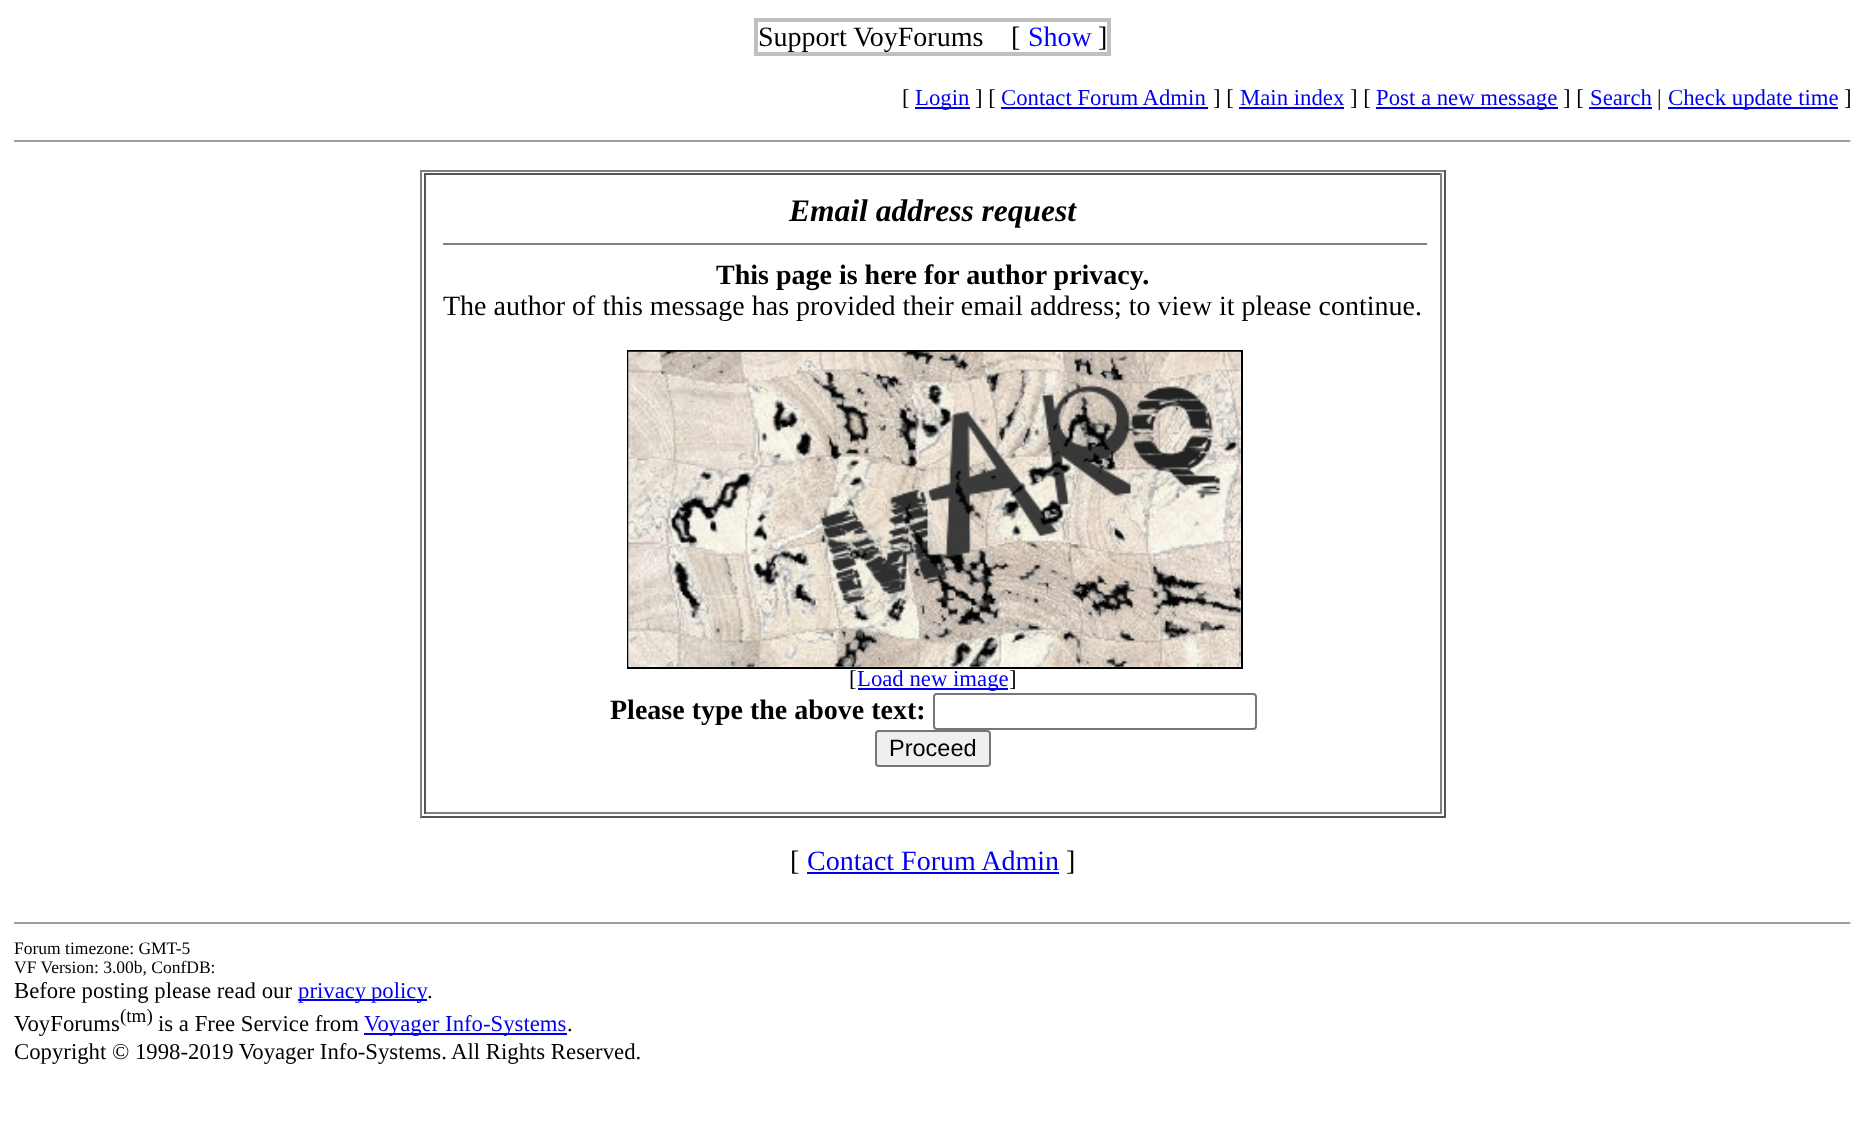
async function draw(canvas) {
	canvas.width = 1864;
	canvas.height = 1144;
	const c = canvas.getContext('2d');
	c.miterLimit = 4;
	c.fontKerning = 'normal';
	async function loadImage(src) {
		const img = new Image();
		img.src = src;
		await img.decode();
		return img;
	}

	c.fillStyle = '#fff';
	c.fillRect(0, 0, 1864, 1144);
	c.strokeStyle = '#c0c0c0';
	c.lineWidth = 4;
	c.strokeRect(756, 20, 353, 34);
	c.font = '28px Liberation Serif';
	c.fillStyle = '#000';
	c.fillText('Support VoyForums', 758, 46);
	c.fillText('[', 1011, 46);
	c.fillStyle = '#00f';
	c.fillText('Show', 1028, 46);
	c.fillStyle = '#000';
	c.fillText(']', 1098, 46);
	c.font = '22.75px Liberation Serif';
	c.fillText('[', 902, 105);
	c.fillStyle = '#00e';
	c.fillRect(915, 107, 55, 2);
	c.fillText('Login', 915, 105);
	c.fillStyle = '#000';
	c.fillText('] [', 975, 105);
	c.fillStyle = '#00e';
	c.fillText('Contact Forum Admin', 1001, 105);
	c.fillRect(1001, 107, 207, 2);
	c.fillStyle = '#000';
	c.fillText('] [', 1213, 105);
	c.fillStyle = '#00e';
	c.fillText('Main index', 1240, 105);
	c.fillRect(1239, 107, 105, 2);
	c.fillStyle = '#000';
	c.fillText('] [', 1350, 105);
	c.fillStyle = '#00e';
	c.fillRect(1376, 107, 182, 2);
	c.fillText('Post a new message', 1376, 105);
	c.fillStyle = '#000';
	c.fillText('] [', 1563, 105);
	c.fillStyle = '#00e';
	c.fillText('Search', 1590, 105);
	c.fillRect(1589, 107, 63, 2);
	c.fillStyle = '#000';
	c.fillText('|', 1657, 105);
	c.fillStyle = '#00e';
	c.fillRect(1668, 107, 170, 2);
	c.fillText('Check update time', 1668, 105);
	c.fillStyle = '#000';
	c.fillText(']', 1844, 105);
	for (const [x, y, w, h, color] of [
		[14, 140, 1838, 2, '#9f9f9f'],
		[1850, 140, 2, 2, '#eee'],
		[420, 170, 1026, 2, '#808080'],
		[1444, 170, 2, 647, '#555'],
		[420, 816, 1026, 2, '#555'],
		[420, 170, 2, 647, '#808080'],
		[424, 173, 1018, 2, '#555'],
		[1440, 173, 2, 641, '#808080'],
		[424, 812, 1018, 2, '#808080'],
		[424, 173, 2, 641, '#555'],
	]) {
		c.fillStyle = color;
		c.fillRect(x, y, w, h);
	}
	c.font = 'italic bold 31.5px Liberation Serif';
	c.fillStyle = '#000';
	c.fillText('Email address request', 789, 221);
	c.fillStyle = '#808080';
	c.fillRect(443, 243, 984, 2);
	c.font = 'bold 28px Liberation Serif';
	c.fillStyle = '#000';
	c.fillText('This page is here for author privacy.', 716, 284);
	c.font = '28px Liberation Serif';
	c.fillText('The author of this message has provided their email address; to view it please continue.', 443, 315);
	c.strokeStyle = '#000';
	c.lineWidth = 2;
	c.strokeRect(628, 351, 614, 317);
	c.drawImage(await loadImage('img1.png'), 628, 351, 613, 316);
	c.font = '22.75px Liberation Serif';
	c.fillText('[', 849, 686);
	c.fillStyle = '#00e';
	c.fillRect(858, 688, 150, 2);
	c.fillText('Load new image', 857, 686);
	c.fillStyle = '#000';
	c.fillText(']', 1009, 686);
	c.font = 'bold 28px Liberation Serif';
	c.fillText('Please type the above text:', 610, 719);
	c.beginPath();
	c.roundRect(934, 694, 322, 35, 3);
	c.strokeStyle = '#767676';
	c.stroke();
	c.fillStyle = '#efefef';
	c.beginPath();
	c.roundRect(876, 731, 114, 35, 3);
	c.fill();
	c.stroke();
	c.font = '23.5px Liberation Sans';
	c.fillStyle = '#000';
	c.fillText('Proceed', 889, 756);
	c.font = '28px Liberation Serif';
	c.fillText('[', 790, 870);
	c.fillStyle = '#00e';
	c.fillText('Contact Forum Admin', 807, 870);
	c.fillRect(807, 872, 252, 2);
	c.fillStyle = '#000';
	c.fillText(']', 1066, 870);
	c.fillStyle = '#9f9f9f';
	c.fillRect(14, 922, 1838, 2);
	c.fillStyle = '#eee';
	c.fillRect(1850, 922, 2, 2);
	c.font = '17.5px Liberation Serif';
	c.fillStyle = '#000';
	c.fillText('Forum timezone: GMT-5', 14, 954);
	c.fillText('VF Version: 3.00b, ConfDB:', 14, 973);
	c.font = '22.75px Liberation Serif';
	c.fillText('Before posting please read our', 14, 998);
	c.fillStyle = '#00e';
	c.fillRect(298, 999, 129, 2);
	c.wordSpacing = '-1px';
	c.fillText('privacy policy', 298, 998);
	c.wordSpacing = '0px';
	c.fillStyle = '#000';
	c.fillText('.', 427, 998);
	c.fillText('VoyForums', 14, 1031);
	c.font = '19px Liberation Serif';
	c.fillText('(tm)', 120, 1022);
	c.font = '22.75px Liberation Serif';
	c.fillText('is a Free Service from', 158, 1031);
	c.fillStyle = '#00e';
	c.fillRect(364, 1033, 203, 2);
	c.fillText('Voyager Info-Systems', 364, 1031);
	c.fillStyle = '#000';
	for (const [text, x, y] of [
		['.', 567, 1031],
		['Copyright © 1998-2019 Voyager Info-Systems.', 14, 1059],
		['All Rights Reserved.', 451, 1059],
	]) {
		c.fillText(text, x, y);
	}
}

draw(document.querySelector('canvas'));
